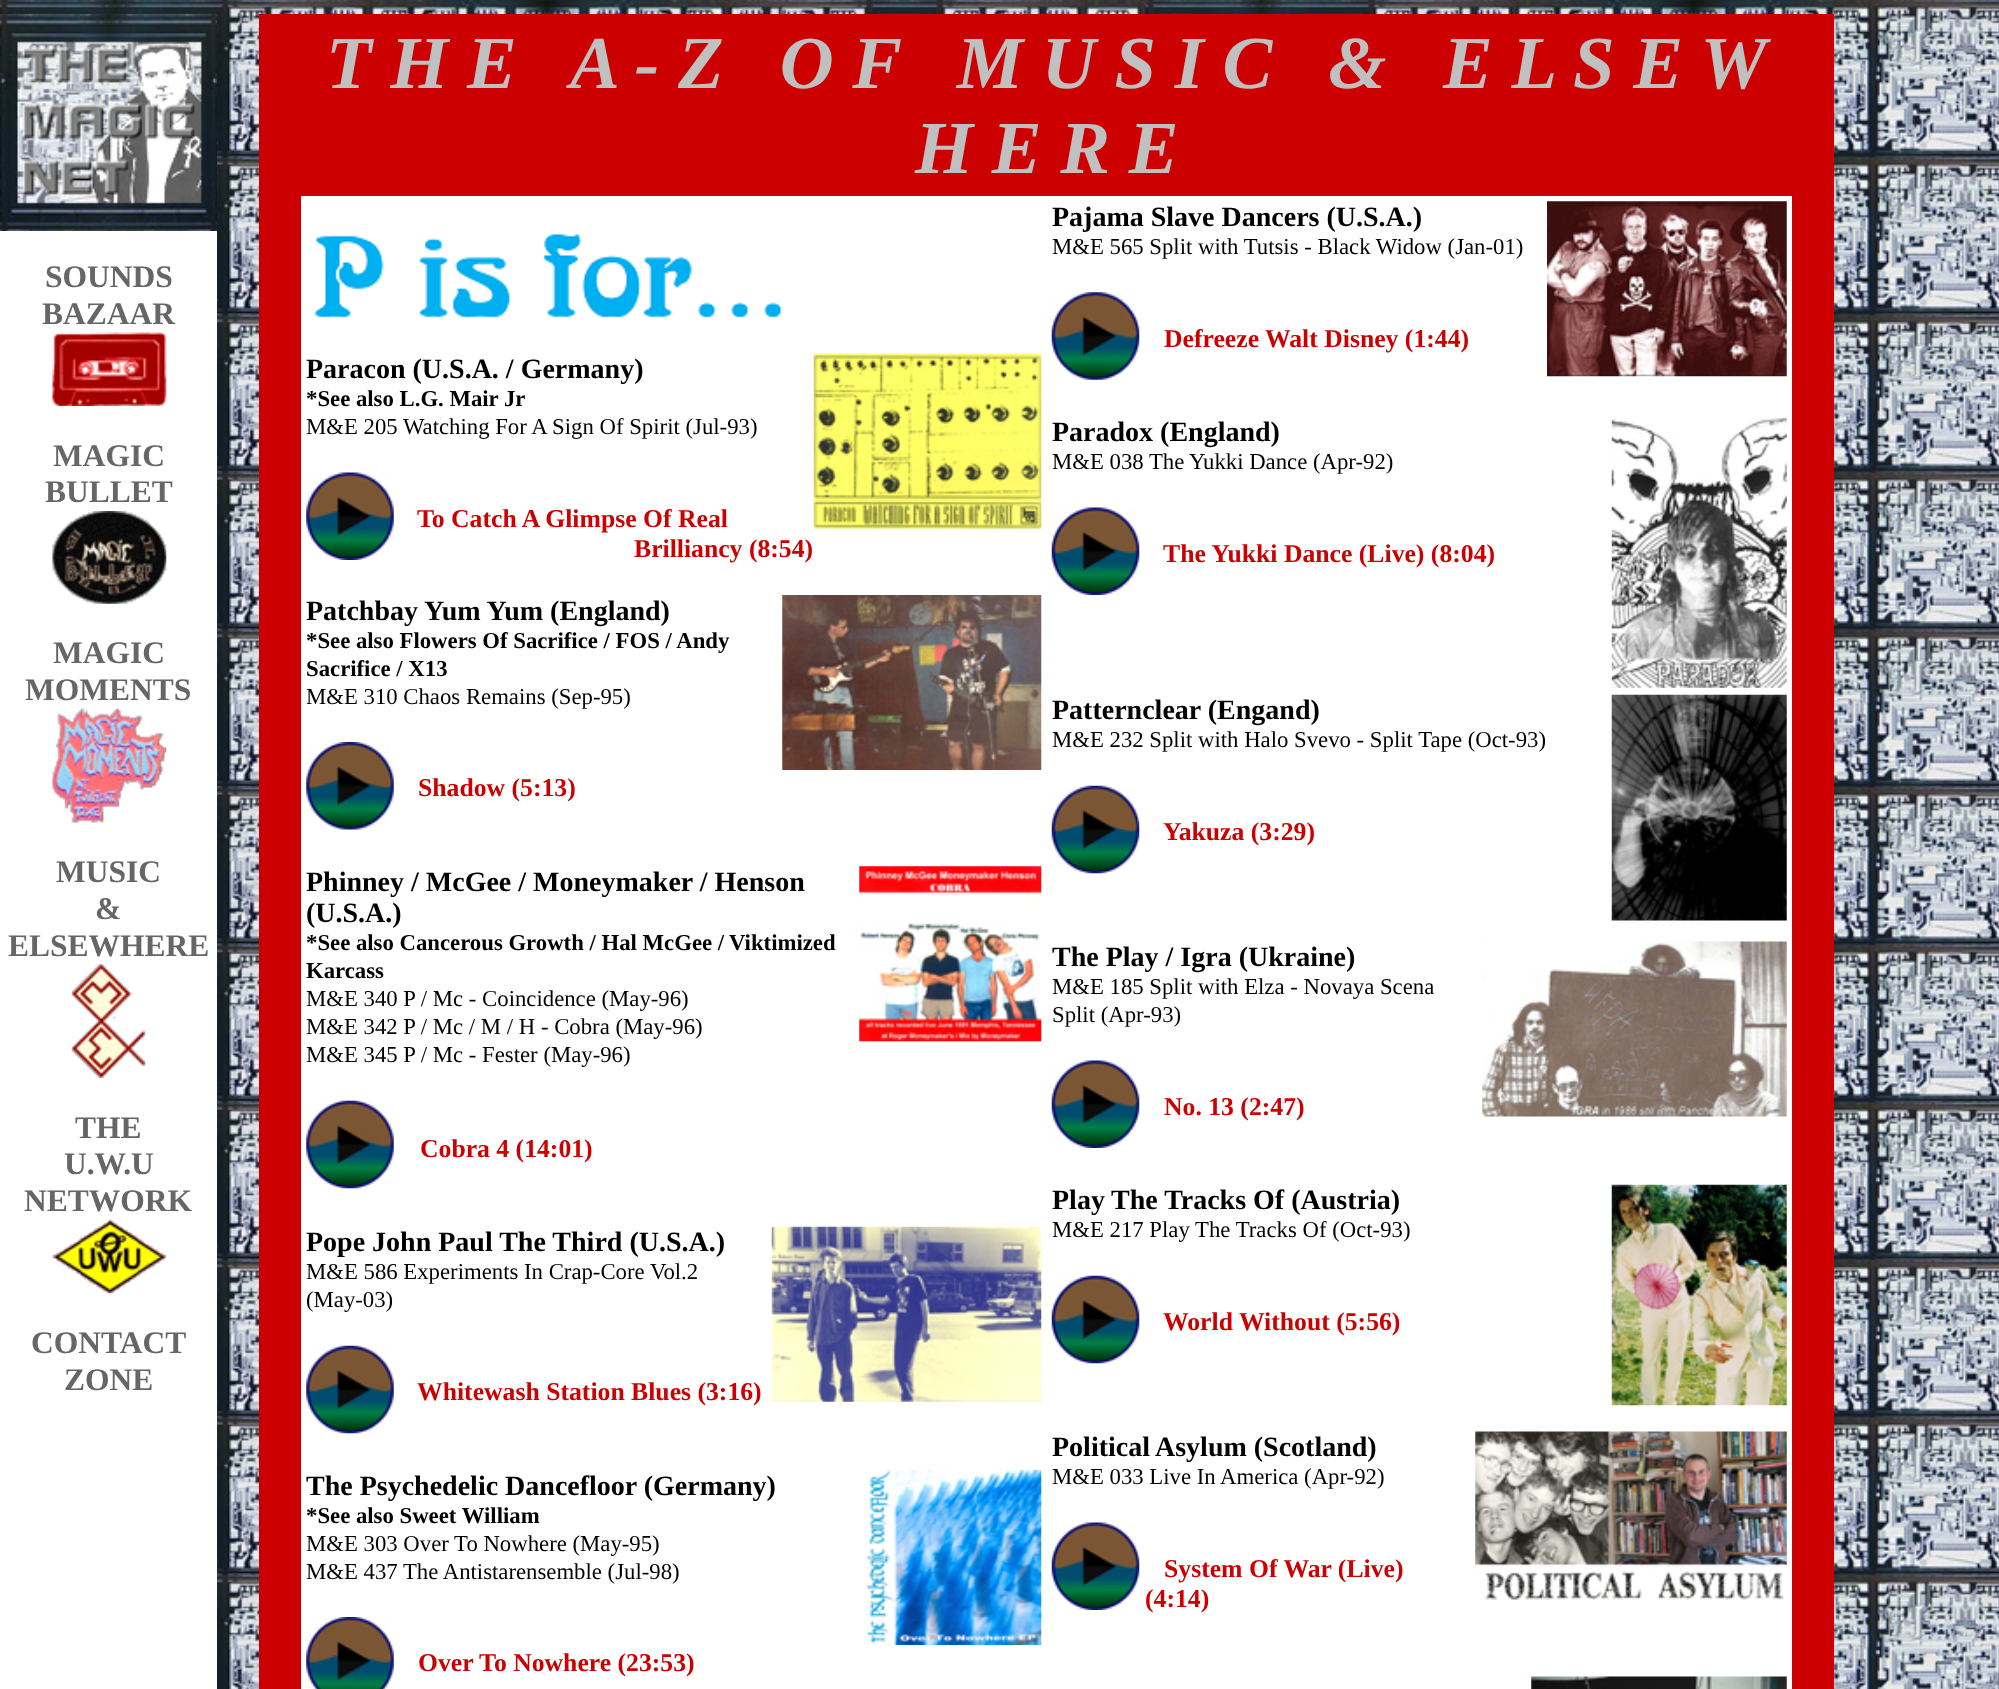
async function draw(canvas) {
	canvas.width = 1999;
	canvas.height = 1689;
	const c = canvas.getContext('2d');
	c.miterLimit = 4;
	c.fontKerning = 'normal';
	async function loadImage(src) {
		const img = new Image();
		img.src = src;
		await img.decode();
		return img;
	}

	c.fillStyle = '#fff';
	c.fillRect(0, 0, 1999, 1689);
	c.drawImage(await loadImage('img1.png'), 0, 0, 1999, 1689);
	c.fillRect(0, 231, 217, 1458);
	c.drawImage(await loadImage('img2.png'), 0, 14, 217, 217);
	c.font = 'bold 31.5px Liberation Serif';
	c.fillStyle = '#666';
	c.fillText('SOUNDS', 45, 287);
	c.fillText('BAZAAR', 42, 324);
	c.drawImage(await loadImage('img3.png'), 52, 332, 115, 74);
	c.fillText('MAGIC', 53, 466);
	c.fillText('BULLET', 45, 502);
	c.drawImage(await loadImage('img4.png'), 52, 511, 115, 93);
	c.fillText('MAGIC', 53, 663);
	c.fillText('MOMENTS', 25, 700);
	c.drawImage(await loadImage('img5.png'), 52, 708, 115, 115);
	for (const [text, x, y] of [
		['MUSIC', 56, 882],
		['&', 95, 919],
		['ELSEWHERE', 8, 956],
	]) {
		c.fillText(text, x, y);
	}
	c.drawImage(await loadImage('img6.png'), 71, 964, 75, 114);
	for (const [text, x, y] of [
		['THE', 75, 1138],
		['U.W.U', 64, 1174],
		['NETWORK', 24, 1211],
	]) {
		c.fillText(text, x, y);
	}
	c.drawImage(await loadImage('img7.png'), 52, 1219, 115, 75);
	c.fillText('CONTACT', 31, 1353);
	c.fillText('ZONE', 64, 1390);
	c.fillStyle = '#c00';
	c.fillRect(259, 14, 1575, 182);
	c.font = 'italic bold 74.7px Liberation Serif';
	c.fillStyle = '#c0c0c0';
	for (const [text, x, y] of [
		['T H E   A - Z   O F   M U S I C   &', 326, 88],
		['E L S E W', 1443, 88],
		['H E R E', 915, 173],
	]) {
		c.fillText(text, x, y);
	}
	c.fillStyle = '#c00';
	c.fillRect(259, 196, 42, 1493);
	c.fillStyle = '#fff';
	c.fillRect(301, 196, 1491, 1493);
	c.drawImage(await loadImage('img8.png'), 314, 234, 469, 85);
	c.font = 'bold 28px Liberation Serif';
	c.fillStyle = '#000';
	c.fillText('Paracon (U.S.A. / Germany)', 306, 378);
	c.drawImage(await loadImage('img9.png'), 813, 353, 229, 176);
	c.font = 'bold 22.75px Liberation Serif';
	c.fillText('*See also L.G. Mair Jr', 306, 406);
	c.font = '22.75px Liberation Serif';
	c.fillText('M&E 205 Watching For A Sign Of Spirit (Jul-93)', 306, 434);
	c.drawImage(await loadImage('img10.png'), 306, 472, 88, 88);
	c.font = 'bold 25.7px Liberation Serif';
	c.fillStyle = '#c00';
	c.fillText('To Catch A Glimpse Of Real', 417, 527);
	c.fillText('Brilliancy (8:54)', 634, 557);
	c.font = 'bold 28px Liberation Serif';
	c.fillStyle = '#000';
	c.fillText('Patchbay', 306, 620);
	c.fillText('Yum Yum (England)', 424, 620);
	c.drawImage(await loadImage('img11.png'), 782, 595, 260, 175);
	c.font = 'bold 22.75px Liberation Serif';
	c.fillText('*See also Flowers Of Sacrifice / FOS / Andy', 306, 648);
	c.fillText('Sacrifice / X13', 306, 676);
	c.font = '22.75px Liberation Serif';
	c.fillText('M&E 310 Chaos Remains (Sep-95)', 306, 704);
	c.drawImage(await loadImage('img12.png'), 306, 742, 88, 88);
	c.font = 'bold 25.7px Liberation Serif';
	c.fillStyle = '#c00';
	c.fillText('Shadow (5:13)', 418, 796);
	c.font = 'bold 28px Liberation Serif';
	c.fillStyle = '#000';
	c.fillText('Phinney / McGee / Moneymaker / Henson', 306, 891);
	c.drawImage(await loadImage('img13.png'), 859, 866, 183, 176);
	c.fillText('(U.S.A.)', 306, 922);
	c.font = 'bold 22.75px Liberation Serif';
	for (const [text, x, y] of [
		['*See also Cancerous Growth / Hal McGee /', 306, 950],
		['Viktimized', 729, 950],
		['Karcass', 306, 978],
	]) {
		c.fillText(text, x, y);
	}
	c.font = '22.75px Liberation Serif';
	for (const [text, x, y] of [
		['M&E 340 P / Mc - Coincidence (May-96)', 306, 1006],
		['M&E 342 P / Mc / M / H - Cobra (May-96)', 306, 1034],
		['M&E 345 P / Mc - Fester (May-96)', 306, 1062],
	]) {
		c.fillText(text, x, y);
	}
	c.drawImage(await loadImage('img14.png'), 306, 1100, 88, 89);
	c.font = 'bold 25.7px Liberation Serif';
	c.fillStyle = '#c00';
	c.fillText('Cobra 4 (14:01)', 420, 1157);
	c.font = 'bold 28px Liberation Serif';
	c.fillStyle = '#000';
	c.fillText('Pope John Paul The Third (U.S.A.)', 306, 1251);
	c.drawImage(await loadImage('img15.png'), 771, 1226, 271, 176);
	c.font = '22.75px Liberation Serif';
	c.fillText('M&E 586 Experiments In Crap-Core Vol.2', 306, 1279);
	c.fillText('(May-03)', 306, 1307);
	c.drawImage(await loadImage('img14.png'), 306, 1345, 88, 89);
	c.font = 'bold 25.7px Liberation Serif';
	c.fillStyle = '#c00';
	c.fillText('Whitewash Station Blues (3:16)', 417, 1400);
	c.font = 'bold 28px Liberation Serif';
	c.fillStyle = '#000';
	c.fillText('The Psychedelic Dancefloor (Germany)', 306, 1495);
	c.drawImage(await loadImage('img16.png'), 866, 1470, 176, 175);
	c.font = 'bold 22.75px Liberation Serif';
	c.fillText('*See also Sweet William', 306, 1523);
	c.font = '22.75px Liberation Serif';
	c.fillText('M&E 303 Over To Nowhere (May-95)', 306, 1551);
	c.fillText('M&E 437 The Antistarensemble (Jul-98)', 306, 1579);
	c.drawImage(await loadImage('img17.png'), 306, 1617, 88, 72);
	c.font = 'bold 25.7px Liberation Serif';
	c.fillStyle = '#c00';
	c.fillText('Over To Nowhere (23:53)', 418, 1671);
	c.font = 'bold 28px Liberation Serif';
	c.fillStyle = '#000';
	c.fillText('Pajama Slave Dancers (U.S.A.)', 1052, 226);
	c.drawImage(await loadImage('img18.png'), 1547, 201, 240, 176);
	c.font = '22.75px Liberation Serif';
	c.fillText('M&E 565 Split with Tutsis - Black Widow (Jan-01)', 1052, 254);
	c.drawImage(await loadImage('img19.png'), 1051, 292, 89, 88);
	c.font = 'bold 25.7px Liberation Serif';
	c.fillStyle = '#c00';
	c.fillText('Defreeze Walt Disney (1:44)', 1164, 347);
	c.font = 'bold 28px Liberation Serif';
	c.fillStyle = '#000';
	c.fillText('Paradox (England)', 1052, 441);
	c.drawImage(await loadImage('img20.png'), 1611, 417, 176, 271);
	c.font = '22.75px Liberation Serif';
	c.fillText('M&E 038 The Yukki Dance (Apr-92)', 1052, 469);
	c.drawImage(await loadImage('img21.png'), 1051, 507, 89, 88);
	c.font = 'bold 25.7px Liberation Serif';
	c.fillStyle = '#c00';
	c.fillText('The Yukki Dance (Live) (8:04)', 1163, 562);
	c.font = 'bold 28px Liberation Serif';
	c.fillStyle = '#000';
	c.fillText('Patternclear (Engand)', 1052, 719);
	c.drawImage(await loadImage('img22.png'), 1611, 694, 176, 227);
	c.font = '22.75px Liberation Serif';
	c.fillText('M&E 232 Split with Halo Svevo - Split Tape (Oct-93)', 1052, 747);
	c.drawImage(await loadImage('img23.png'), 1051, 785, 89, 89);
	c.font = 'bold 25.7px Liberation Serif';
	c.fillStyle = '#c00';
	c.fillText('Yakuza (3:29)', 1163, 840);
	c.font = 'bold 28px Liberation Serif';
	c.fillStyle = '#000';
	c.fillText('The Play / Igra (Ukraine)', 1052, 966);
	c.drawImage(await loadImage('img24.png'), 1482, 941, 305, 176);
	c.font = '22.75px Liberation Serif';
	c.fillText('M&E 185 Split with Elza - Novaya Scena', 1052, 994);
	c.fillText('Split (Apr-93)', 1052, 1022);
	c.drawImage(await loadImage('img21.png'), 1051, 1060, 89, 88);
	c.font = 'bold 25.7px Liberation Serif';
	c.fillStyle = '#c00';
	c.fillText('No. 13 (2:47)', 1164, 1115);
	c.font = 'bold 28px Liberation Serif';
	c.fillStyle = '#000';
	c.fillText('Play', 1052, 1209);
	c.fillText('The Tracks Of (Austria)', 1111, 1209);
	c.drawImage(await loadImage('img25.png'), 1611, 1184, 176, 222);
	c.font = '22.75px Liberation Serif';
	c.fillText('M&E 217 Play The Tracks Of (Oct-93)', 1052, 1237);
	c.drawImage(await loadImage('img23.png'), 1051, 1275, 89, 89);
	c.font = 'bold 25.7px Liberation Serif';
	c.fillStyle = '#c00';
	c.fillText('World Without (5:56)', 1163, 1330);
	c.font = 'bold 28px Liberation Serif';
	c.fillStyle = '#000';
	c.fillText('Political', 1052, 1456);
	c.fillText('Asylum (Scotland)', 1155, 1456);
	c.drawImage(await loadImage('img26.png'), 1475, 1431, 312, 169);
	c.font = '22.75px Liberation Serif';
	c.fillText('M&E 033 Live In America (Apr-92)', 1052, 1484);
	c.drawImage(await loadImage('img21.png'), 1051, 1522, 89, 88);
	c.font = 'bold 25.7px Liberation Serif';
	c.fillStyle = '#c00';
	c.fillText('System Of War (Live)', 1164, 1577);
	c.fillText('(4:14)', 1145, 1607);
	c.drawImage(await loadImage('img27.png'), 1531, 1676, 256, 13);
	c.fillRect(1792, 196, 42, 1493);
}

draw(document.querySelector('canvas'));
